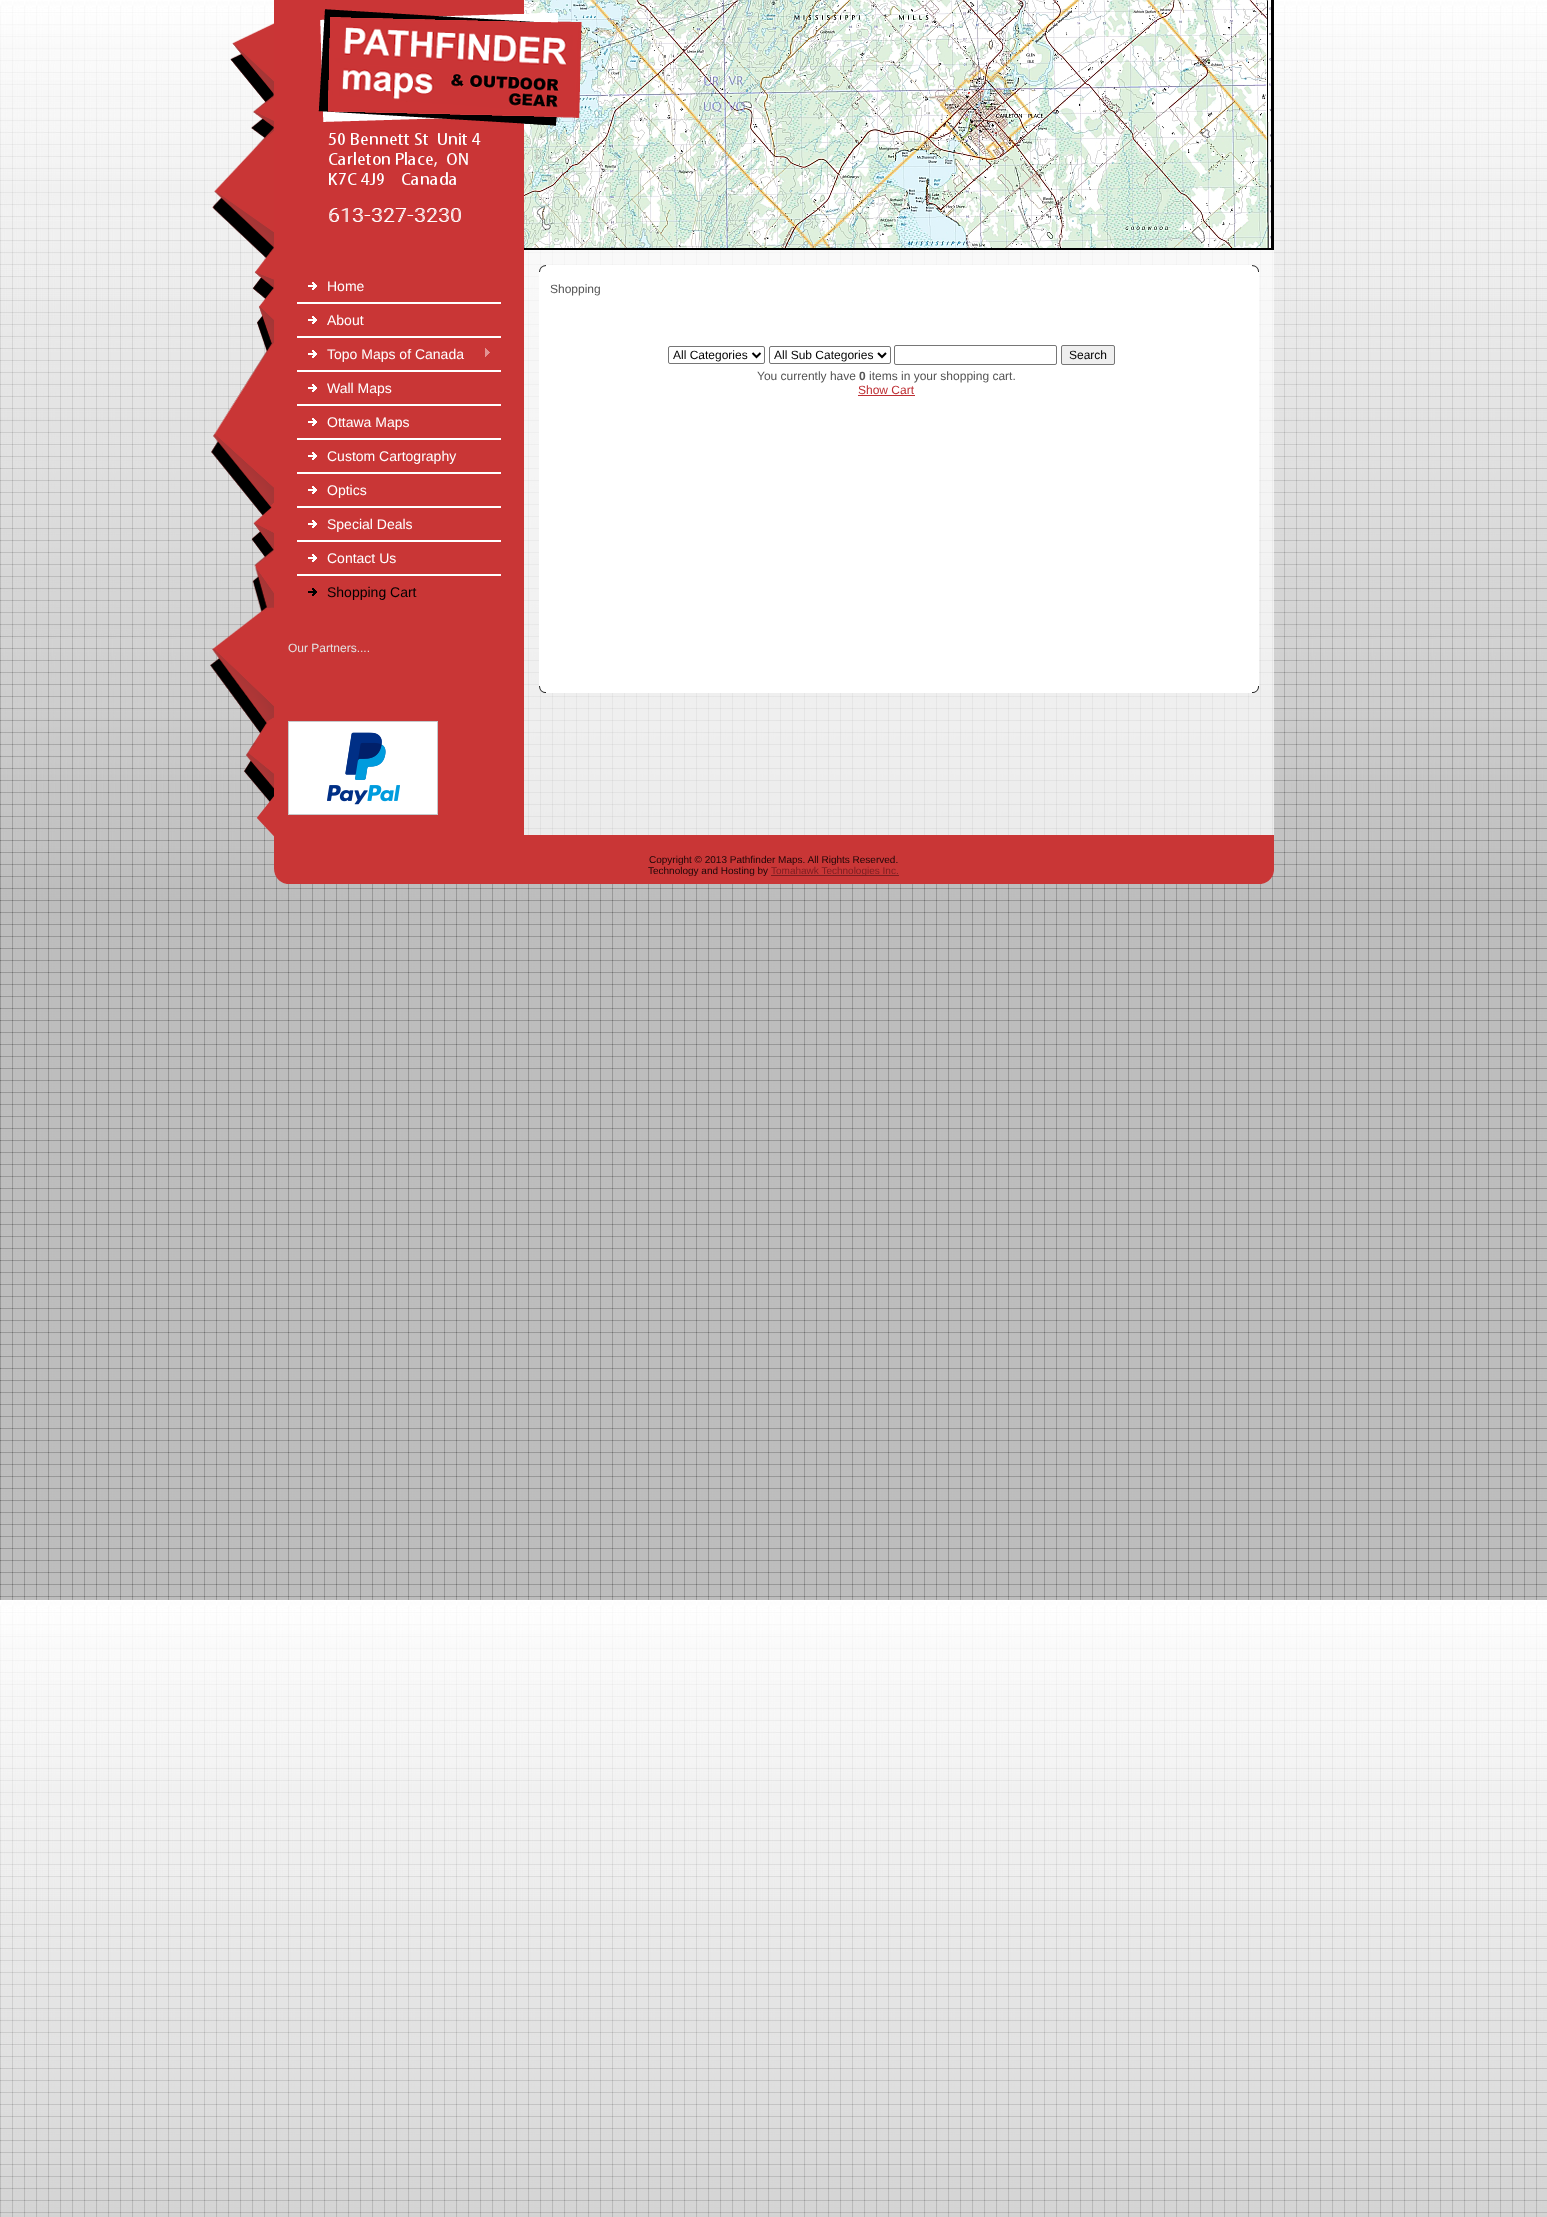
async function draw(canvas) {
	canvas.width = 1547;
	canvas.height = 2217;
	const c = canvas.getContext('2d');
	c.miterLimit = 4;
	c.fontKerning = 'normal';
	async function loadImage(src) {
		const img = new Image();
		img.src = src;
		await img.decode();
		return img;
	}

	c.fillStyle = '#fff';
	c.fillRect(0, 0, 1547, 2217);
	c.drawImage(await loadImage('img1.png'), 0, 0, 1547, 2217);
	c.drawImage(await loadImage('img2.png'), 210, 23, 64, 814);
	c.fillStyle = '#fefefeb3';
	c.fillRect(524, 250, 735, 585);
	c.fillRect(1259, 250, 15, 585);
	c.drawImage(await loadImage('img3.png'), 274, 0, 1000, 250);
	c.drawImage(await loadImage('img4.png'), 328, 12, 251, 228);
	c.fillStyle = '#c93636';
	c.fillRect(274, 250, 250, 585);
	c.drawImage(await loadImage('img5.png'), 308, 282, 9, 8);
	c.font = '14px Liberation Sans';
	c.fillStyle = '#fff';
	c.fillText('Home', 327, 291);
	c.fillRect(297, 302, 204, 2);
	c.drawImage(await loadImage('img5.png'), 308, 316, 9, 8);
	c.fillText('About', 327, 325);
	c.fillRect(297, 336, 204, 2);
	c.drawImage(await loadImage('img5.png'), 308, 350, 9, 8);
	c.fillText('Topo Maps of Canada', 327, 359);
	c.drawImage(await loadImage('img6.png'), 485, 348, 5, 9);
	c.fillRect(297, 370, 204, 2);
	c.drawImage(await loadImage('img5.png'), 308, 384, 9, 8);
	c.fillText('Wall Maps', 327, 393);
	c.fillRect(297, 404, 204, 2);
	c.drawImage(await loadImage('img5.png'), 308, 418, 9, 8);
	c.fillText('Ottawa Maps', 327, 427);
	c.fillRect(297, 438, 204, 2);
	c.drawImage(await loadImage('img5.png'), 308, 452, 9, 8);
	c.fillText('Custom Cartography', 327, 461);
	c.fillRect(297, 472, 204, 2);
	c.drawImage(await loadImage('img5.png'), 308, 486, 9, 8);
	c.fillText('Optics', 327, 495);
	c.fillRect(297, 506, 204, 2);
	c.drawImage(await loadImage('img5.png'), 308, 520, 9, 8);
	c.fillText('Special Deals', 327, 529);
	c.fillRect(297, 540, 204, 2);
	c.drawImage(await loadImage('img5.png'), 308, 554, 9, 8);
	c.fillText('Contact Us', 327, 563);
	c.fillRect(297, 574, 204, 2);
	c.drawImage(await loadImage('img7.png'), 308, 588, 9, 8);
	c.fillStyle = '#000';
	c.fillText('Shopping Cart', 327, 597);
	c.font = '12px Liberation Sans';
	c.fillStyle = '#e3e3e3';
	c.fillText('Our Partners....', 288, 652);
	c.drawImage(await loadImage('img8.png'), 288, 721, 150, 94);
	c.drawImage(await loadImage('img9.png'), 539, 265, 7, 7);
	c.fillStyle = '#fff';
	c.fillRect(546, 265, 706, 7);
	c.drawImage(await loadImage('img10.png'), 1252, 265, 7, 7);
	c.fillRect(539, 272, 7, 414);
	c.fillRect(546, 272, 713, 414);
	c.fillStyle = '#545454';
	c.fillText('Shopping', 550, 293);
	c.beginPath();
	c.roundRect(668.5, 346.5, 96, 17, 1.5);
	c.strokeStyle = '#767676';
	c.stroke();
	c.beginPath();
	c.moveTo(752.5, 353);
	c.lineTo(756.5, 357);
	c.lineTo(760.5, 353);
	c.strokeStyle = '#000';
	c.lineWidth = 2;
	c.stroke();
	c.fillStyle = '#000';
	c.fillText('All Categories', 673, 359);
	c.beginPath();
	c.roundRect(769.5, 346.5, 121, 17, 1.5);
	c.strokeStyle = '#767676';
	c.lineWidth = 1;
	c.stroke();
	c.beginPath();
	c.moveTo(878, 353);
	c.lineTo(882, 357);
	c.lineTo(886, 353);
	c.strokeStyle = '#000';
	c.lineWidth = 2;
	c.stroke();
	c.fillText('All Sub Categories', 774, 359);
	c.beginPath();
	c.roundRect(894.5, 345.5, 162, 19, 1.5);
	c.strokeStyle = '#767676';
	c.lineWidth = 1;
	c.stroke();
	c.fillStyle = '#efefef';
	c.beginPath();
	c.roundRect(1061.5, 345.5, 53, 19, 1.5);
	c.fill();
	c.stroke();
	c.fillStyle = '#000';
	c.fillText('Search', 1069, 359);
	c.fillStyle = '#545454';
	c.fillText('You currently have', 757, 380);
	c.font = 'bold 12px Liberation Sans';
	c.fillText('0', 859, 380);
	c.font = '12px Liberation Sans';
	c.fillText('items in your shopping cart.', 869, 380);
	c.fillStyle = '#bd2e33';
	c.fillText('Show Cart', 858, 394);
	c.fillRect(858, 395, 57, 1);
	c.drawImage(await loadImage('img11.png'), 539, 686, 7, 7);
	c.fillStyle = '#fff';
	c.fillRect(546, 686, 706, 7);
	c.drawImage(await loadImage('img12.png'), 1252, 686, 7, 7);
	c.fillStyle = '#c93636';
	c.fillRect(274, 835, 1000, 34);
	c.drawImage(await loadImage('img13.png'), 274, 869, 15, 15);
	c.font = '10px Liberation Sans';
	c.fillStyle = '#1d0708';
	c.fillText('Copyright © 2013 Pathfinder Maps. All Rights Reserved.', 649, 863);
	c.fillStyle = '#c93636';
	c.fillRect(289, 869, 970, 15);
	c.fillStyle = '#1d0708';
	c.fillText('Technology and Hosting by', 648, 874);
	c.fillStyle = '#7b1e21';
	c.fillRect(771, 875, 128, 1);
	c.fillText('Tomahawk Technologies Inc.', 771, 874);
	c.drawImage(await loadImage('img14.png'), 1259, 869, 15, 15);
}

draw(document.querySelector('canvas'));
